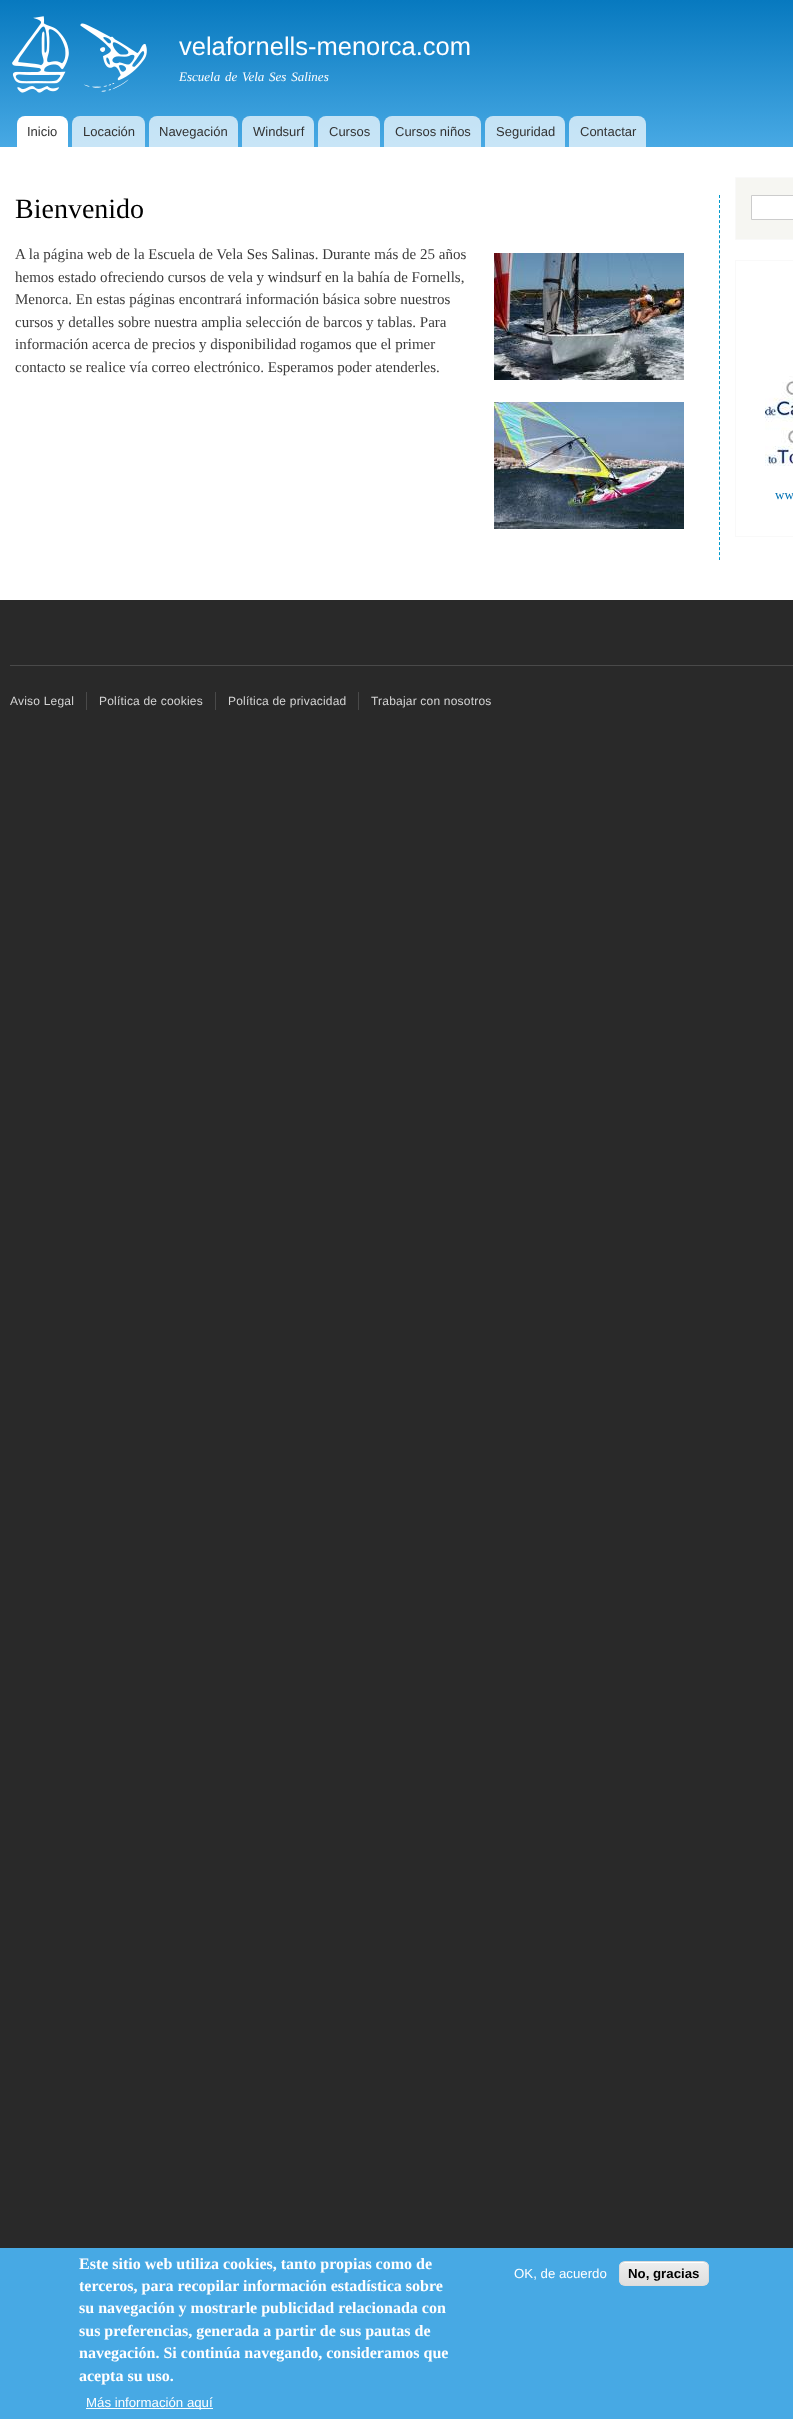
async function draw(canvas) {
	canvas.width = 793;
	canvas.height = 2419;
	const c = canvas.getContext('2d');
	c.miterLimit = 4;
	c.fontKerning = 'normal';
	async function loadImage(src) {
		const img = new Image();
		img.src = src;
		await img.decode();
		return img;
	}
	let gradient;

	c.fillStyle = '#292929';
	c.fillRect(0, 0, 793, 2419);
	c.fillStyle = '#fff';
	c.fillRect(0, 147, 793, 453);
	gradient = c.createLinearGradient(480, 0, 480, 147);
	gradient.addColorStop(0, '#0779bf');
	gradient.addColorStop(1, '#48a9e4');
	c.fillStyle = gradient;
	c.fillRect(0, 0, 793, 147);
	c.drawImage(await loadImage('img1.png'), 12, 16, 135, 77);
	c.font = '25.5px Liberation Sans';
	c.fillStyle = '#fffeff';
	c.fillText('velafornells-menorca.com', 179, 55);
	c.wordSpacing = '1.5px';
	c.font = 'italic 13px Liberation Serif';
	c.fillText('Escuela de Vela Ses Salines', 179, 81);
	c.fillStyle = '#fff';
	c.beginPath();
	c.roundRect(17, 116, 51, 31, [8, 8, 0, 0]);
	c.fill();
	c.wordSpacing = '0px';
	c.font = '13px Liberation Sans';
	c.fillStyle = '#333';
	c.fillText('Inicio', 27, 136);
	c.fillStyle = '#ffffffb3';
	c.beginPath();
	c.roundRect(72, 116, 73, 31, [8, 8, 0, 0]);
	c.fill();
	c.fillStyle = '#333';
	c.fillText('Locación', 83, 136);
	c.fillStyle = '#ffffffb3';
	c.beginPath();
	c.roundRect(149, 116, 89, 31, [8, 8, 0, 0]);
	c.fill();
	c.fillStyle = '#333';
	c.fillText('Navegación', 159, 136);
	c.fillStyle = '#ffffffb3';
	c.beginPath();
	c.roundRect(242, 116, 72, 31, [8, 8, 0, 0]);
	c.fill();
	c.fillStyle = '#333';
	c.fillText('Windsurf', 253, 136);
	c.fillStyle = '#ffffffb3';
	c.beginPath();
	c.roundRect(318, 116, 62, 31, [8, 8, 0, 0]);
	c.fill();
	c.fillStyle = '#333';
	c.fillText('Cursos', 329, 136);
	c.fillStyle = '#ffffffb3';
	c.beginPath();
	c.roundRect(384, 116, 97, 31, [8, 8, 0, 0]);
	c.fill();
	c.fillStyle = '#333';
	c.fillText('Cursos niños', 395, 136);
	c.fillStyle = '#ffffffb3';
	c.beginPath();
	c.roundRect(485, 116, 80, 31, [8, 8, 0, 0]);
	c.fill();
	c.fillStyle = '#333';
	c.fillText('Seguridad', 496, 136);
	c.fillStyle = '#ffffffb3';
	c.beginPath();
	c.roundRect(569, 116, 77, 31, [8, 8, 0, 0]);
	c.fill();
	c.fillStyle = '#333';
	c.fillText('Contactar', 580, 136);
	c.beginPath();
	c.moveTo(719.5, 195);
	c.lineTo(719.5, 560);
	c.strokeStyle = '#09c';
	c.setLineDash([3, 2.03]);
	c.stroke();
	c.font = '28px Liberation Serif';
	c.fillStyle = '#000';
	c.fillText('Bienvenido', 15, 218);
	c.font = '15px Liberation Serif';
	c.fillStyle = '#3b3b3b';
	for (const [text, x, y] of [
		['A la página web de la Escuela de Vela Ses Salinas. Durante más de 25 años', 15, 259],
		['hemos estado ofreciendo cursos de vela y windsurf en la bahía de Fornells,', 15, 282],
		['Menorca. En estas páginas encontrará información básica sobre nuestros', 15, 304],
		['cursos y detalles sobre nuestra amplia selección de barcos y tablas. Para', 15, 327],
		['información acerca de precios y disponibilidad rogamos que el primer', 15, 349],
		['contacto se realice vía correo electrónico. Esperamos poder atenderles.', 15, 372],
	]) {
		c.fillText(text, x, y);
	}
	c.drawImage(await loadImage('img2.png'), 494, 253, 190, 127);
	c.drawImage(await loadImage('img3.png'), 494, 402, 190, 127);
	c.fillStyle = '#f6f6f2';
	c.beginPath();
	c.rect(735.5, 177.5, 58, 62);
	c.fill();
	c.strokeStyle = '#f9f9f9';
	c.setLineDash([]);
	c.stroke();
	c.fillStyle = '#fff';
	c.beginPath();
	c.rect(751.5, 195.5, 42, 24);
	c.fill();
	c.strokeStyle = '#ccc';
	c.stroke();
	c.strokeStyle = '#f9f9f9';
	c.strokeRect(735.5, 260.5, 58, 276);
	c.drawImage(await loadImage('img4.png'), 765, 376, 28, 90);
	c.font = '13px Liberation Serif';
	c.fillStyle = '#0071b3';
	c.fillText('ww', 775, 499);
	c.fillStyle = '#494949';
	c.fillRect(10, 665, 783, 1);
	c.fillRect(86, 692, 1, 18);
	c.letterSpacing = '0.2px';
	c.font = '12px Liberation Sans';
	c.fillStyle = '#d4d4d4';
	c.fillText('Aviso Legal', 10, 705);
	c.fillStyle = '#494949';
	c.fillRect(215, 692, 1, 18);
	c.fillStyle = '#d4d4d4';
	c.fillText('Política de cookies', 99, 705);
	c.fillStyle = '#494949';
	c.fillRect(358, 692, 1, 18);
	c.fillStyle = '#d4d4d4';
	c.fillText('Política de privacidad', 228, 705);
	c.fillText('Trabajar con nosotros', 371, 705);
	c.fillStyle = '#47a9e4';
	c.fillRect(0, 2248, 793, 171);
	c.letterSpacing = '0px';
	c.font = 'bold 16px Liberation Serif';
	c.fillStyle = '#fffeff';
	for (const [text, x, y] of [
		['Este sitio web utiliza cookies, tanto propias como de', 79, 2269],
		['terceros, para recopilar información estadística sobre', 79, 2291],
		['su navegación y mostrarle publicidad relacionada con', 79, 2313],
		['sus preferencias, generada a partir de sus pautas de', 79, 2336],
		['navegación. Si continúa navegando, consideramos que', 79, 2358],
		['acepta su uso.', 79, 2381],
	]) {
		c.fillText(text, x, y);
	}
	c.fillStyle = '#fff';
	c.fillRect(86, 2408, 127, 1);
	c.font = '13.25px Liberation Sans';
	c.fillStyle = '#fffeff';
	c.fillText('Más información aquí', 86, 2407);
	c.fillText('OK, de acuerdo', 514, 2278);
	c.save();
	c.beginPath();
	c.roundRect(619, 2261, 90, 25, 6);
	c.clip();
	gradient = c.createLinearGradient(664, 2262, 664, 2285);
	gradient.addColorStop(0.05, '#ededed');
	gradient.addColorStop(1, '#dfdfdf');
	c.fillStyle = gradient;
	c.fillRect(619, 2262, 90, 23);
	c.restore();
	c.fillStyle = '#fff';
	c.beginPath();
	c.moveTo(625, 2263);
	c.lineTo(703, 2263);
	c.bezierCurveTo(706, 2263, 708, 2265, 708, 2268);
	c.bezierCurveTo(708, 2259, 696, 2262, 690, 2262);
	c.lineTo(638, 2262);
	c.bezierCurveTo(632, 2262, 620, 2259, 620, 2268);
	c.bezierCurveTo(620, 2265, 622, 2263, 625, 2263);
	c.closePath();
	c.fill();
	c.beginPath();
	c.roundRect(619.5, 2261.5, 89, 24, 5.5);
	c.strokeStyle = '#dcdcdc';
	c.stroke();
	c.font = 'bold 13.25px Liberation Sans';
	c.fillStyle = '#000';
	c.fillText('No, gracias', 628, 2278);
}

draw(document.querySelector('canvas'));
